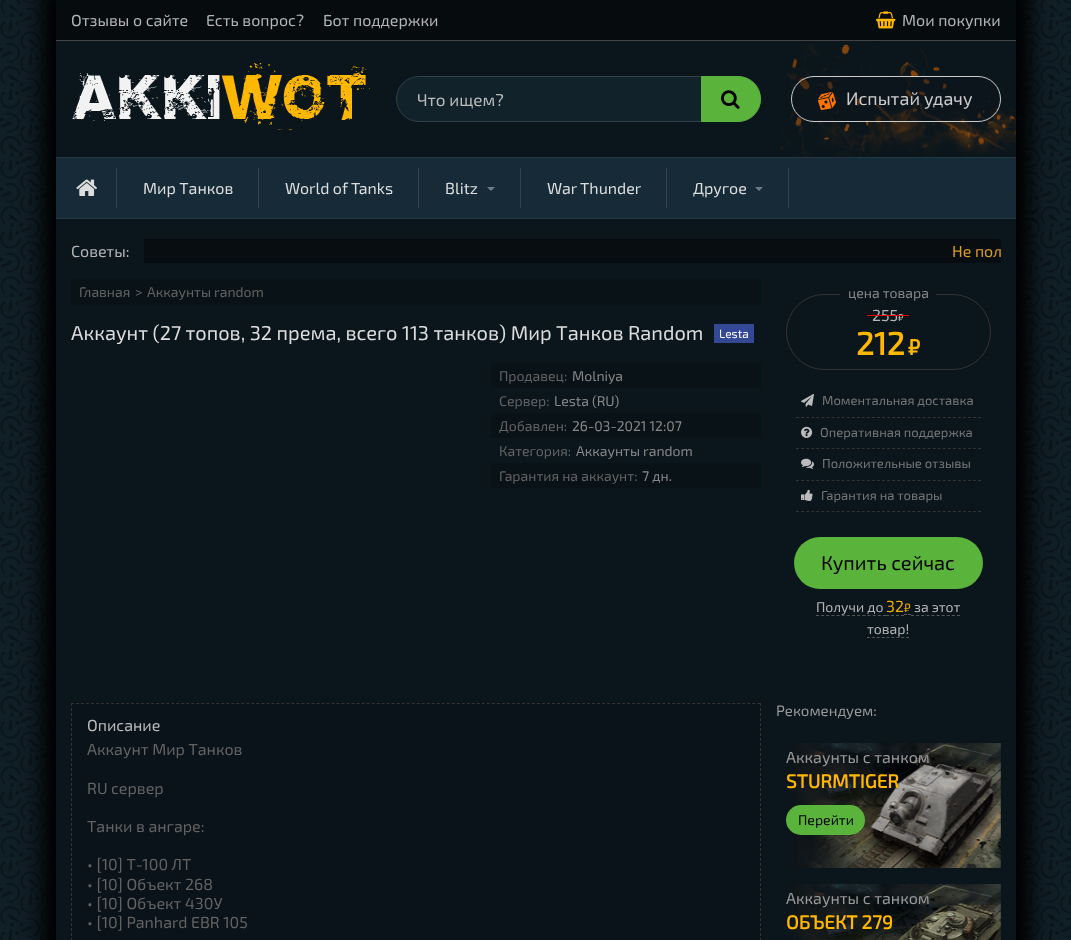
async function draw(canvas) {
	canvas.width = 1071;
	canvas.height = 940;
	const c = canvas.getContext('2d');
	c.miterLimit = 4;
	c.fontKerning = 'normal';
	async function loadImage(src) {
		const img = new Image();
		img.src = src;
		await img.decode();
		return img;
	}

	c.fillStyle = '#fff';
	c.fillRect(0, 0, 1071, 940);
	c.drawImage(await loadImage('img1.png'), 0, 0, 1071, 940);
	c.fillStyle = '#000';
	c.filter = 'blur(10px)';
	c.beginPath();
	c.rect(42, -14, 988, 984);
	c.fill();
	c.filter = 'none';
	for (const [x, y, w, h, color] of [
		[56, 41, 960, 899, '#0b161c'],
		[56, 0, 960, 40, '#060b0e'],
		[56, 40, 960, 1, '#444'],
	]) {
		c.fillStyle = color;
		c.fillRect(x, y, w, h);
	}
	c.font = '16px "Exo 2"';
	c.fillStyle = '#b4b4b4';
	for (const [text, x, y] of [
		['Отзывы о сайте', 71, 26],
		['Есть вопрос?', 206, 26],
		['Бот поддержки', 323, 26],
	]) {
		c.fillText(text, x, y);
	}
	c.drawImage(await loadImage('img2.png'), 876, 11, 20, 18);
	c.fillText('Мои покупки', 902, 26);
	c.drawImage(await loadImage('img3.png'), 72, 63, 298, 67);
	c.fillStyle = '#11222b';
	c.beginPath();
	c.roundRect(396.5, 76.5, 364, 45, 22.5);
	c.fill();
	c.strokeStyle = '#2f414b';
	c.stroke();
	c.font = '17px "Exo 2"';
	c.fillStyle = '#bbb';
	c.fillText('Что ищем?', 417, 106);
	c.fillStyle = '#5ab33a';
	c.beginPath();
	c.roundRect(701.5, 76.5, 59, 45, [0, 22.5, 22.5, 0]);
	c.fill();
	c.strokeStyle = '#5ab33a';
	c.stroke();
	c.drawImage(await loadImage('img4.png'), 721, 90, 19, 19);
	c.drawImage(await loadImage('img5.png'), 780, 44, 236, 113);
	c.fillStyle = '#0b161c6e';
	c.beginPath();
	c.roundRect(791.5, 76.5, 209, 45, 22.5);
	c.fill();
	c.strokeStyle = '#ccc';
	c.stroke();
	c.drawImage(await loadImage('img6.png'), 818, 92, 18, 18);
	c.font = '18px "Exo 2"';
	c.fillStyle = '#ccc';
	c.fillText('Испытай удачу', 846, 105);
	for (const [x, y, w, h, color] of [
		[56, 158, 960, 60, '#162b37'],
		[56, 157, 960, 1, '#243843'],
		[56, 218, 960, 1, '#243843'],
	]) {
		c.fillStyle = color;
		c.fillRect(x, y, w, h);
	}
	c.drawImage(await loadImage('img7.png'), 76, 179, 21, 17);
	c.fillStyle = '#30424d';
	c.fillRect(116, 168, 1, 40);
	c.font = '16px "Exo 2"';
	c.fillStyle = '#ddd';
	c.fillText('Мир Танков', 143, 194);
	c.fillStyle = '#30424d';
	c.fillRect(258, 168, 1, 40);
	c.fillStyle = '#ddd';
	c.fillText('World of Tanks', 285, 194);
	c.fillStyle = '#30424d';
	c.fillRect(418, 168, 1, 40);
	c.fillStyle = '#ddd';
	c.fillText('Blitz', 445, 194);
	c.fillStyle = '#6f7c83';
	c.beginPath();
	c.moveTo(487, 187);
	c.lineTo(495, 187);
	c.lineTo(491, 191);
	c.closePath();
	c.fill();
	c.fillStyle = '#30424d';
	c.fillRect(520, 168, 1, 40);
	c.fillStyle = '#ddd';
	c.fillText('War Thunder', 547, 194);
	c.fillStyle = '#30424d';
	c.fillRect(666, 168, 1, 40);
	c.fillStyle = '#ddd';
	c.fillText('Другое', 693, 194);
	c.fillStyle = '#6f7c83';
	c.beginPath();
	c.moveTo(755, 187);
	c.lineTo(763, 187);
	c.lineTo(759, 191);
	c.closePath();
	c.fill();
	c.fillStyle = '#30424d';
	c.fillRect(788, 168, 1, 40);
	c.fillStyle = '#b4b4b4';
	c.fillText('Советы:', 71, 257);
	c.fillStyle = '#070d10';
	c.fillRect(144, 239, 857, 24);
	c.save();
	c.beginPath();
	c.rect(71, 239, 930, 24);
	c.clip();
	c.fillStyle = '#dc9c28';
	c.fillText('Не пол', 952, 257);
	c.restore();
	c.fillStyle = '#091217';
	c.fillRect(71, 279, 690, 26);
	c.font = '14px "Exo 2"';
	c.fillStyle = '#636363';
	for (const [text, x, y] of [
		['Главная', 79, 297],
		['>', 135, 297],
		['Аккаунты random', 147, 297],
	]) {
		c.fillText(text, x, y);
	}
	c.font = '20px "Exo 2"';
	c.fillStyle = '#ddd';
	c.fillText('Аккаунт (27 топов, 32 према, всего 113 танков) Мир Танков Random', 71, 340);
	c.fillStyle = '#334995';
	c.fillRect(714, 324, 40, 19);
	c.font = '12px "Exo 2"';
	c.fillStyle = '#fff';
	c.fillText('Lesta', 719, 338);
	c.fillStyle = '#091217';
	c.fillRect(491, 363, 270, 25);
	c.font = '14px "Exo 2"';
	c.fillStyle = '#636363';
	c.fillText('Продавец:', 499, 381);
	c.fillStyle = '#888';
	c.fillText('Molniya', 572, 381);
	c.fillStyle = '#636363';
	c.fillText('Cервер:', 499, 406);
	c.fillStyle = '#888';
	c.fillText('Lesta (RU)', 554, 406);
	c.fillStyle = '#091217';
	c.fillRect(491, 413, 270, 25);
	c.fillStyle = '#636363';
	c.fillText('Добавлен:', 499, 431);
	c.fillStyle = '#888';
	c.fillText('26-03-2021 12:07', 572, 431);
	c.fillStyle = '#636363';
	c.fillText('Категория:', 499, 456);
	c.fillStyle = '#888';
	c.fillText('Аккаунты random', 576, 456);
	c.fillStyle = '#091217';
	c.fillRect(491, 463, 270, 25);
	c.fillStyle = '#636363';
	c.fillText('Гарантия на аккаунт:', 499, 481);
	c.fillStyle = '#888';
	c.fillText('7 дн.', 642, 481);
	c.beginPath();
	c.roundRect(786.5, 294.5, 204, 75, 37.5);
	c.strokeStyle = '#333';
	c.stroke();
	c.fillStyle = '#0b151b';
	c.fillRect(840, 294, 96, 1);
	c.fillStyle = '#888';
	c.fillText('цена товара', 848, 298);
	c.font = '16px "Exo 2"';
	c.fillStyle = '#b4b4b4';
	c.fillText('255', 872, 321);
	c.font = '10px "Exo 2"';
	c.fillText('₽', 898, 321);
	c.fillStyle = '#ff0000eb';
	c.fillRect(867, 315, 42, 1);
	c.font = 'bold 32px "Exo 2"';
	c.fillStyle = '#ffb700';
	c.fillText('212', 856, 355);
	c.font = 'bold 22px "Exo 2"';
	c.fillText('₽', 908, 355);
	c.beginPath();
	c.moveTo(796, 417.5);
	c.lineTo(981, 417.5);
	c.setLineDash([3, 2.06]);
	c.stroke();
	c.drawImage(await loadImage('img8.png'), 801, 393, 13, 14);
	c.font = '13px "Exo 2"';
	c.fillStyle = '#777';
	c.fillText('Моментальная доставка', 822, 405);
	c.beginPath();
	c.moveTo(796, 448.5);
	c.lineTo(981, 448.5);
	c.stroke();
	c.drawImage(await loadImage('img9.png'), 801, 426, 12, 12);
	c.fillText('Оперативная поддержка', 820, 437);
	c.beginPath();
	c.moveTo(796, 480.5);
	c.lineTo(981, 480.5);
	c.stroke();
	c.drawImage(await loadImage('img10.png'), 801, 458, 13, 11);
	c.fillText('Положительные отзывы', 822, 468);
	c.beginPath();
	c.moveTo(796, 511.5);
	c.lineTo(981, 511.5);
	c.stroke();
	c.drawImage(await loadImage('img11.png'), 801, 489, 12, 12);
	c.fillText('Гарантия на товары', 821, 500);
	c.fillStyle = '#5ab33a';
	c.beginPath();
	c.roundRect(794, 537, 189, 52, 26);
	c.fill();
	c.font = '20px "Exo 2"';
	c.fillStyle = '#000';
	c.fillText('Купить сейчас', 821, 570);
	c.font = '14px "Exo 2"';
	c.fillStyle = '#b4b4b4';
	c.fillText('Получи до', 816, 612);
	c.beginPath();
	c.moveTo(816, 615.5);
	c.lineTo(886, 615.5);
	c.strokeStyle = '#555';
	c.setLineDash([3, 2.15]);
	c.stroke();
	c.font = '16px "Exo 2"';
	c.fillStyle = '#f0ad01';
	c.fillText('32', 886, 612);
	c.font = '12px "Exo 2"';
	c.fillText('₽', 904, 612);
	c.beginPath();
	c.moveTo(886, 615.5);
	c.lineTo(904, 615.5);
	c.setLineDash([3, 2]);
	c.stroke();
	c.beginPath();
	c.moveTo(904, 614.5);
	c.lineTo(907, 614.5);
	c.moveTo(908, 614.5);
	c.lineTo(911, 614.5);
	c.setLineDash([]);
	c.stroke();
	c.font = '14px "Exo 2"';
	c.fillStyle = '#b4b4b4';
	c.fillText('за этот', 914, 612);
	c.beginPath();
	c.moveTo(911, 615.5);
	c.lineTo(960, 615.5);
	c.setLineDash([3, 2.11]);
	c.stroke();
	c.fillText('товар!', 867, 634);
	c.beginPath();
	c.moveTo(867, 637.5);
	c.lineTo(909, 637.5);
	c.setLineDash([3, 1.88]);
	c.stroke();
	c.fillStyle = '#0a1319';
	c.fillRect(71, 703, 690, 237);
	c.beginPath();
	c.moveTo(71, 703.5);
	c.lineTo(761, 703.5);
	c.strokeStyle = '#333';
	c.setLineDash([3, 2.01]);
	c.stroke();
	c.beginPath();
	c.moveTo(760.5, 703);
	c.lineTo(760.5, 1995);
	c.setLineDash([3, 2]);
	c.stroke();
	c.beginPath();
	c.moveTo(71.5, 703);
	c.lineTo(71.5, 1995);
	c.stroke();
	c.font = '16px "Exo 2"';
	c.fillStyle = '#bbb';
	c.fillText('Описание', 87, 731);
	c.fillStyle = '#636363';
	for (const [text, x, y] of [
		['Аккаунт Мир Танков', 87, 755],
		['RU сервер', 87, 794],
		['Танки в ангаре:', 87, 832],
		['• [10] Т-100 ЛТ', 87, 870],
		['• [10] Объект 268', 87, 890],
		['• [10] Объект 430У', 87, 909],
		['• [10] Panhard EBR 105', 87, 928],
	]) {
		c.fillText(text, x, y);
	}
	c.font = '15px "Exo 2"';
	c.fillStyle = '#999';
	c.fillText('Рекомендуем:', 776, 716);
	c.drawImage(await loadImage('img12.png'), 791, 743, 210, 125);
	c.font = '16px "Exo 2"';
	c.fillText('Аккаунты с танком', 786, 763);
	c.font = 'bold 19px "Exo 2"';
	c.fillStyle = '#ffb700';
	c.fillText('STURMTIGER', 786, 788);
	c.fillStyle = '#5ab33a';
	c.beginPath();
	c.roundRect(786, 805, 79, 30, 15);
	c.fill();
	c.font = '14px "Exo 2"';
	c.fillStyle = '#000';
	c.fillText('Перейти', 798, 825);
	c.drawImage(await loadImage('img13.png'), 791, 884, 210, 56);
	c.font = '16px "Exo 2"';
	c.fillStyle = '#999';
	c.fillText('Аккаунты с танком', 786, 904);
	c.font = 'bold 19px "Exo 2"';
	c.fillStyle = '#ffb700';
	c.fillText('ОБЪЕКТ 279', 786, 929);
}

draw(document.querySelector('canvas'));
